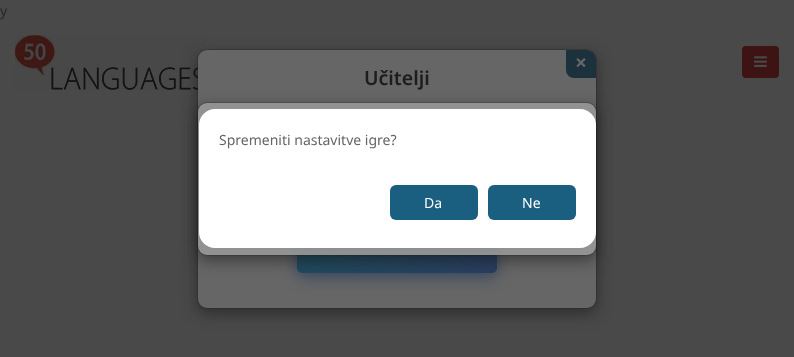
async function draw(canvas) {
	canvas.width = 794;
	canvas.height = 357;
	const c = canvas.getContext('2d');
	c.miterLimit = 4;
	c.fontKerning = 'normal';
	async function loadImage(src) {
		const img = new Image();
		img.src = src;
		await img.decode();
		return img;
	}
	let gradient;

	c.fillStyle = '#494949';
	c.fillRect(0, 0, 794, 357);
	c.font = '14px Noto Sans';
	c.fillStyle = '#282828';
	c.fillText('y', 0, 16);
	c.drawImage(await loadImage('img1.png'), 15, 35, 190, 55);
	c.fillStyle = '#3d1313';
	c.beginPath();
	c.roundRect(742, 46, 37, 32, 4);
	c.fill();
	c.drawImage(await loadImage('img2.png'), 754, 56, 13, 11);
	c.fillStyle = '#13131380';
	c.filter = 'blur(7.5px)';
	c.beginPath();
	c.roundRect(197, 54, 400, 260, 10);
	c.fill();
	c.filter = 'none';
	c.fillStyle = '#666';
	c.beginPath();
	c.roundRect(198, 50, 398, 258, 9);
	c.fill();
	c.beginPath();
	c.roundRect(197.5, 49.5, 399, 259, 9.5);
	c.strokeStyle = '#13131333';
	c.stroke();
	c.fillStyle = '#5d5d5d';
	c.fillRect(198, 107, 398, 1);
	c.save();
	c.beginPath();
	c.roundRect(198, 50, 398, 258, 9);
	c.clip();
	c.fillStyle = '#1b313c';
	c.beginPath();
	c.roundRect(566, 48, 30, 30, [0, 8, 0, 8]);
	c.fill();
	c.restore();
	c.font = 'bold 21px Noto Sans';
	c.fillStyle = '#666';
	c.fillText('×', 575, 70);
	c.font = '600 19.5px Noto Sans';
	c.fillStyle = '#1c1d1f';
	c.fillText('Učitelji', 364, 85);
	c.fillStyle = '#283e5fbf';
	c.filter = 'blur(7.5px)';
	c.beginPath();
	c.roundRect(297, 222, 200, 55, 5);
	c.fill();
	c.filter = 'none';
	gradient = c.createLinearGradient(297, 245, 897, 245);
	gradient.addColorStop(0, '#1f4a5c');
	gradient.addColorStop(0.33, '#293d5f');
	gradient.addColorStop(0.67, '#145165');
	gradient.addColorStop(1, '#273e60');
	c.fillStyle = gradient;
	c.beginPath();
	c.roundRect(297, 218, 200, 55, 5);
	c.fill();
	c.fillStyle = '#13131380';
	c.filter = 'blur(7.5px)';
	c.beginPath();
	c.roundRect(197, 107, 400, 154, 10);
	c.fill();
	c.filter = 'none';
	c.fillStyle = '#929292';
	c.beginPath();
	c.roundRect(198, 103, 398, 152, 9);
	c.fill();
	c.beginPath();
	c.roundRect(197.5, 102.5, 399, 153, 9.5);
	c.stroke();
	c.fillStyle = '#335588bf';
	c.filter = 'blur(7.5px)';
	c.beginPath();
	c.roundRect(297, 193, 200, 46, 5);
	c.fill();
	c.filter = 'none';
	c.fillStyle = '#fff';
	c.beginPath();
	c.roundRect(199, 109, 397, 139, 16);
	c.fill();
	c.font = '14px Noto Sans';
	c.fillStyle = '#666';
	c.fillText('Spremeniti nastavitve igre?', 219, 145);
	c.fillStyle = '#1a5e80';
	c.beginPath();
	c.roundRect(390, 185, 88, 35, 6);
	c.fill();
	c.fillStyle = '#fff';
	c.fillText('Da', 424, 208);
	c.fillStyle = '#1a5e80';
	c.beginPath();
	c.roundRect(488, 185, 88, 35, 6);
	c.fill();
	c.fillStyle = '#fff';
	c.fillText('Ne', 522, 208);
}

draw(document.querySelector('canvas'));
